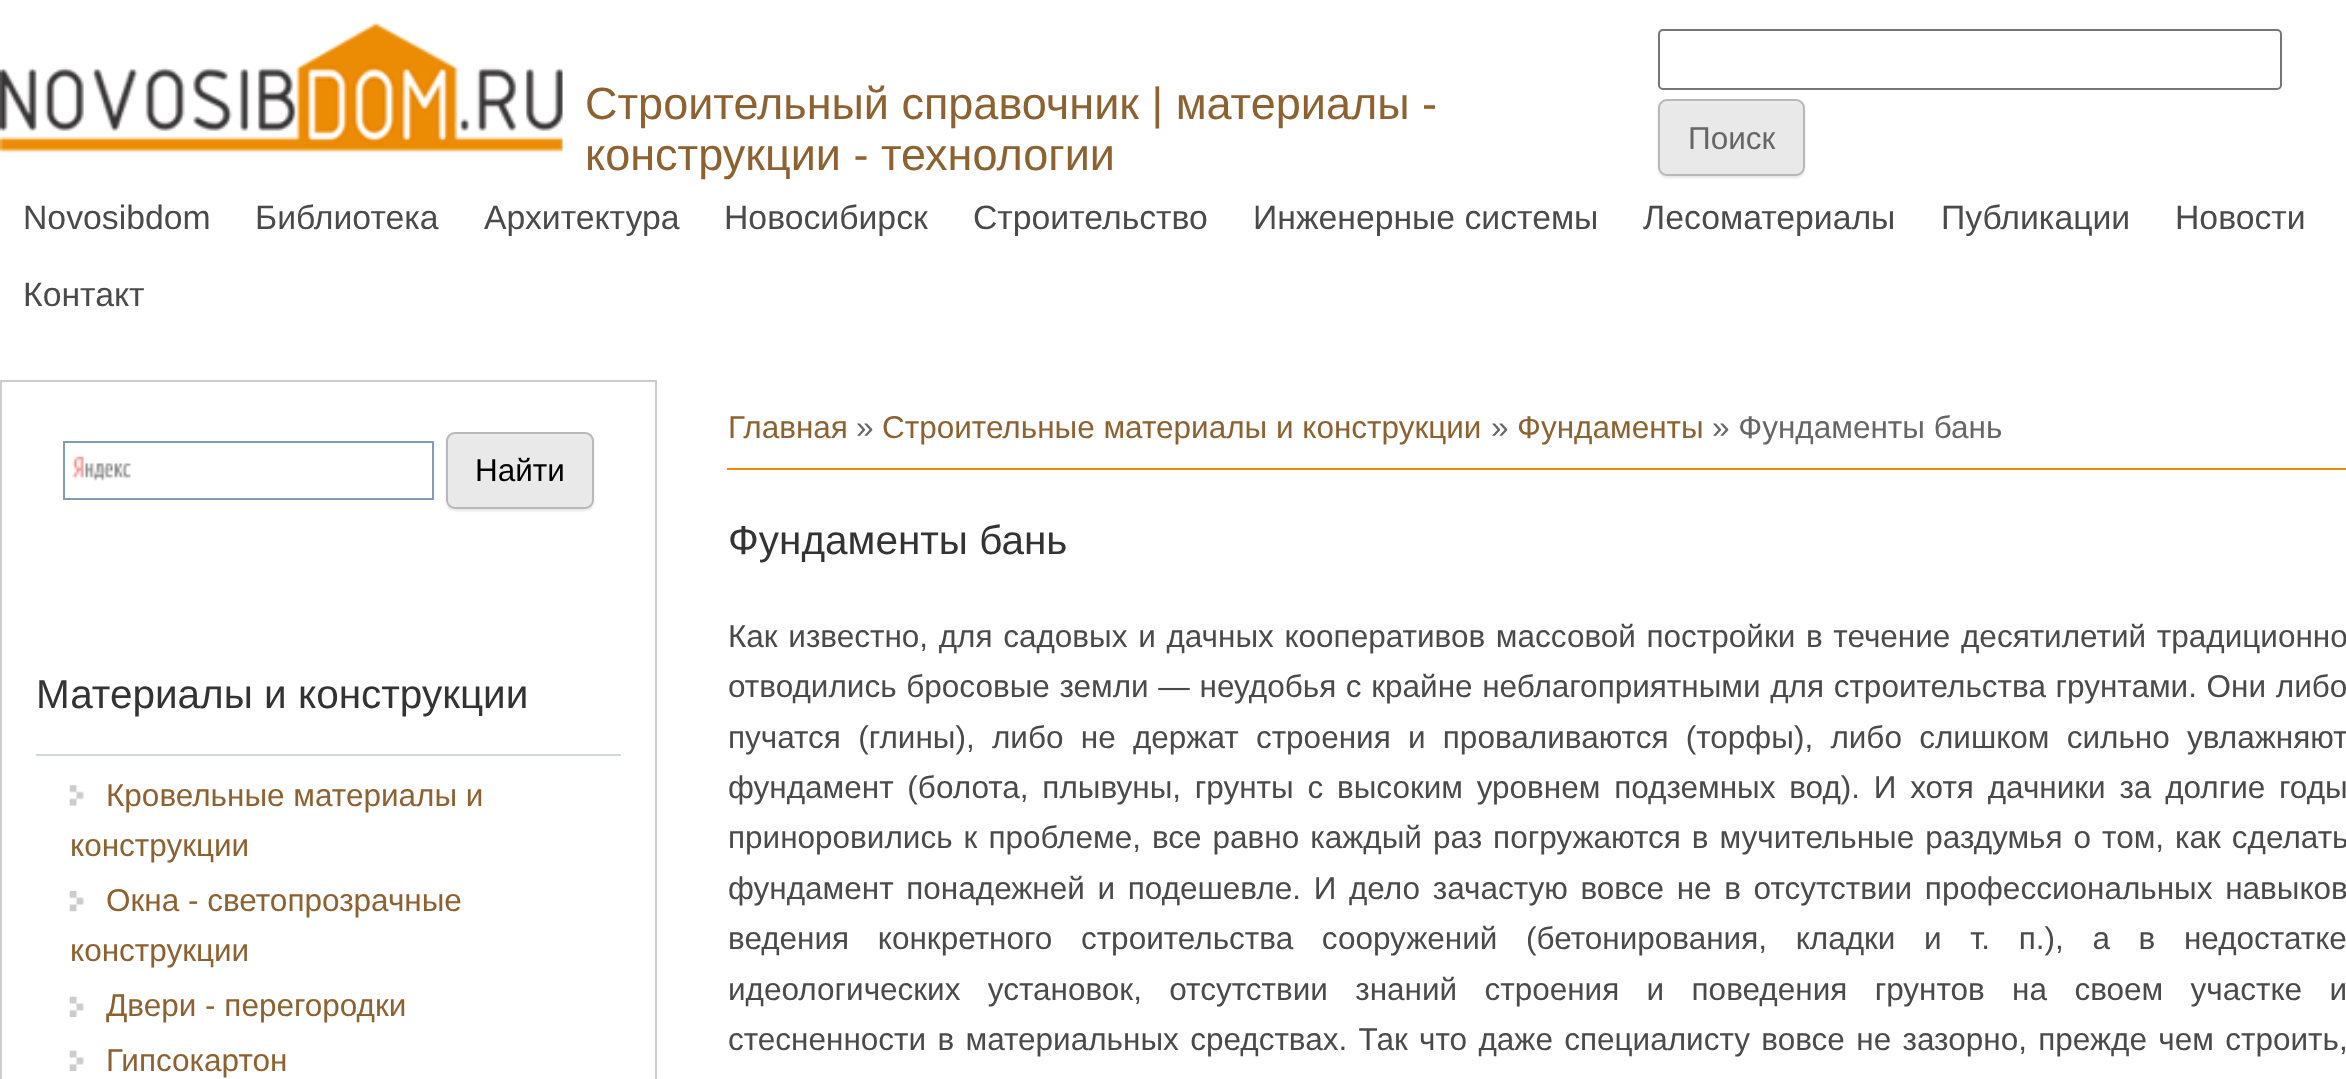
async function draw(canvas) {
	canvas.width = 2346;
	canvas.height = 1079;
	const c = canvas.getContext('2d');
	c.miterLimit = 4;
	c.fontKerning = 'normal';
	async function loadImage(src) {
		const img = new Image();
		img.src = src;
		await img.decode();
		return img;
	}

	c.fillStyle = '#fff';
	c.fillRect(0, 0, 2346, 1079);
	c.drawImage(await loadImage('img1.png'), 0, 22, 563, 131);
	c.font = '45px Liberation Sans';
	c.fillStyle = '#8e6130';
	c.fillText('Строительный справочник | материалы -', 585, 119);
	c.fillText('конструкции - технологии', 585, 170);
	c.beginPath();
	c.roundRect(1659, 30, 622, 59, 4);
	c.strokeStyle = '#767676';
	c.lineWidth = 2;
	c.stroke();
	c.fillStyle = '#0000001a';
	c.filter = 'blur(1px)';
	c.beginPath();
	c.roundRect(1658, 101, 147, 77, 9);
	c.fill();
	c.filter = 'none';
	c.fillStyle = '#e9e9e9';
	c.beginPath();
	c.roundRect(1658, 99, 147, 77, 9);
	c.fill();
	c.fillStyle = '#ececec';
	c.beginPath();
	c.moveTo(1667, 104);
	c.lineTo(1796, 104);
	c.bezierCurveTo(1799, 104, 1802, 107, 1802, 110);
	c.lineTo(1802, 108);
	c.bezierCurveTo(1802, 104, 1799, 101, 1795, 101);
	c.lineTo(1668, 101);
	c.bezierCurveTo(1664, 101, 1661, 104, 1661, 107);
	c.bezierCurveTo(1662, 105, 1665, 104, 1667, 104);
	c.closePath();
	c.fill();
	c.beginPath();
	c.roundRect(1659, 100, 145, 75, 8);
	c.strokeStyle = '#b8b8b8';
	c.stroke();
	c.font = '31.5px Liberation Sans';
	c.fillStyle = '#666';
	c.fillText('Поиск', 1688, 149);
	c.font = '33.75px Liberation Sans';
	c.fillStyle = '#4a4a4a';
	for (const [text, x, y] of [
		['Novosibdom', 23, 229],
		['Библиотека', 255, 229],
		['Архитектура', 484, 229],
		['Новосибирск', 724, 229],
		['Строительство', 973, 229],
		['Инженерные системы', 1253, 229],
		['Лесоматериалы', 1643, 229],
		['Публикации', 1941, 229],
		['Новости', 2175, 229],
		['Контакт', 23, 306],
	]) {
		c.fillText(text, x, y);
	}
	c.strokeStyle = '#ccc';
	c.strokeRect(1, 381, 655, 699);
	c.drawImage(await loadImage('img2.png'), 72, 456, 59, 26);
	c.strokeStyle = '#7f9db9';
	c.strokeRect(64, 442, 369, 57);
	c.fillStyle = '#0000001a';
	c.filter = 'blur(1px)';
	c.beginPath();
	c.roundRect(446, 434, 148, 77, 9);
	c.fill();
	c.filter = 'none';
	c.fillStyle = '#e9e9e9';
	c.beginPath();
	c.roundRect(446, 432, 148, 77, 9);
	c.fill();
	c.fillStyle = '#ececec';
	c.beginPath();
	c.moveTo(454, 436);
	c.lineTo(585, 436);
	c.bezierCurveTo(589, 436, 592, 440, 592, 443);
	c.lineTo(592, 441);
	c.bezierCurveTo(592, 437, 589, 434, 585, 434);
	c.lineTo(455, 434);
	c.bezierCurveTo(451, 434, 448, 437, 448, 441);
	c.lineTo(448, 443);
	c.bezierCurveTo(448, 440, 451, 436, 454, 436);
	c.closePath();
	c.fill();
	c.beginPath();
	c.roundRect(447, 433, 146, 75, 8);
	c.strokeStyle = '#b8b8b8';
	c.stroke();
	c.font = '31.5px Liberation Sans';
	c.fillStyle = '#000';
	c.fillText('Найти', 475, 481);
	c.fillStyle = '#d3d7d9';
	c.fillRect(36, 754, 585, 2);
	c.font = '40.5px Liberation Sans';
	c.fillStyle = '#333';
	c.fillText('Материалы и конструкции', 36, 708);
	c.drawImage(await loadImage('img3.png'), 69, 785, 15, 21);
	c.font = '31.5px Liberation Sans';
	c.fillStyle = '#8e6130';
	c.fillText('Кровельные материалы и', 106, 806);
	c.fillText('конструкции', 70, 856);
	c.drawImage(await loadImage('img4.png'), 69, 891, 15, 21);
	c.fillText('Окна - светопрозрачные', 106, 911);
	c.fillText('конструкции', 70, 961);
	c.drawImage(await loadImage('img5.png'), 69, 996, 15, 21);
	c.fillText('Двери - перегородки', 106, 1016);
	c.drawImage(await loadImage('img5.png'), 69, 1050, 15, 21);
	c.fillText('Гипсокартон', 106, 1071);
	c.fillStyle = '#ec8c04';
	c.fillRect(727, 468, 1619, 2);
	c.fillStyle = '#8e6130';
	c.fillText('Главная', 728, 438);
	c.fillStyle = '#666';
	c.fillText('»', 856, 438);
	c.fillStyle = '#8e6130';
	c.fillText('Строительные материалы и конструкции', 882, 438);
	c.fillStyle = '#666';
	c.fillText('»', 1491, 438);
	c.fillStyle = '#8e6130';
	c.fillText('Фундаменты', 1517, 438);
	c.fillStyle = '#666';
	c.fillText('» Фундаменты бань', 1712, 438);
	c.font = '40.5px Liberation Sans';
	c.fillStyle = '#333';
	c.fillText('Фундаменты бань', 728, 554);
	c.wordSpacing = '1.9px';
	c.font = '31.5px Liberation Sans';
	c.fillStyle = '#4a4a4a';
	c.fillText('Как известно, для садовых и дачных кооперативов массовой постройки в течение десятилетий традиционно', 728, 647);
	c.wordSpacing = '0.9px';
	c.fillText('отводились бросовые земли — неудобья с крайне неблагоприятными для строительства грунтами. Они либо', 728, 697);
	c.wordSpacing = '8.5px';
	c.fillText('пучатся (глины), либо не держат строения и проваливаются (торфы), либо слишком сильно увлажняют', 728, 748);
	c.wordSpacing = '5px';
	c.fillText('фундамент (болота, плывуны, грунты с высоким уровнем подземных вод). И хотя дачники за долгие годы', 728, 798);
	c.wordSpacing = '2.25px';
	c.fillText('приноровились к проблеме, все равно каждый раз погружаются в мучительные раздумья о том, как сделать', 728, 848);
	c.wordSpacing = '3.9px';
	c.fillText('фундамент понадежней и подешевле. И дело зачастую вовсе не в отсутствии профессиональных навыков', 728, 899);
	c.wordSpacing = '19.9px';
	c.fillText('ведения конкретного строительства сооружений (бетонирования, кладки и т. п.), а в недостатке', 728, 949);
	c.wordSpacing = '18.6px';
	c.fillText('идеологических установок, отсутствии знаний строения и поведения грунтов на своем участке и', 728, 1000);
	c.wordSpacing = '2.6px';
	c.fillText('стесненности в материальных средствах. Так что даже специалисту вовсе не зазорно, прежде чем строить,', 728, 1050);
}

draw(document.querySelector('canvas'));
